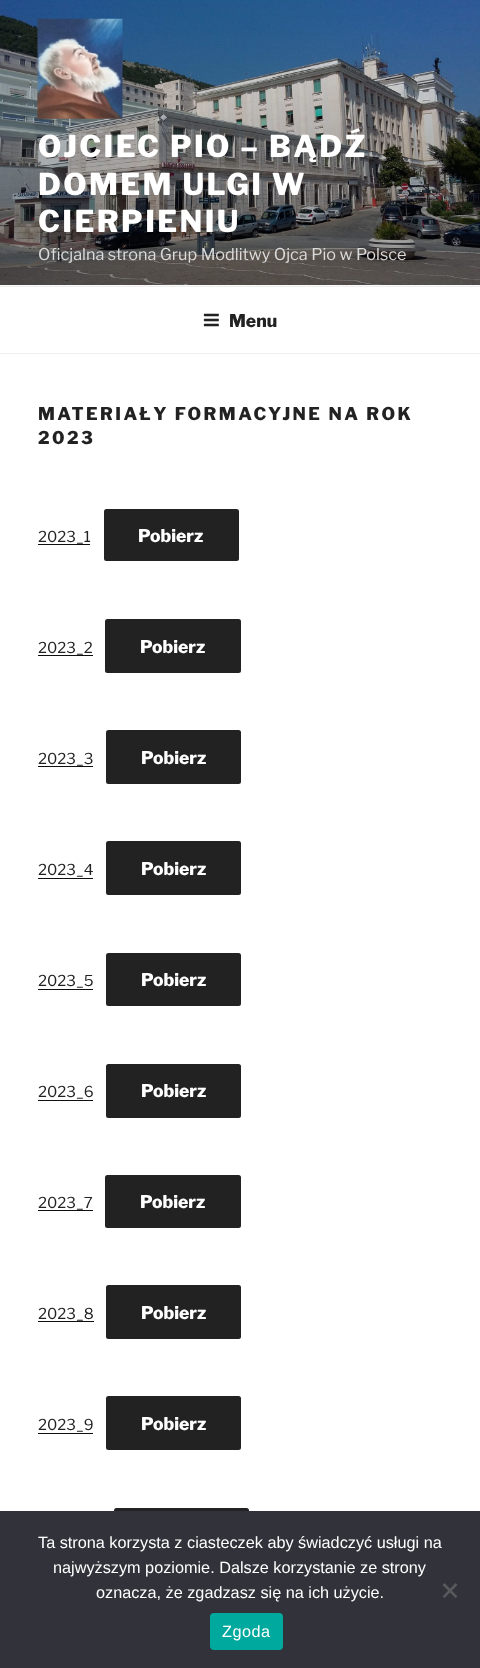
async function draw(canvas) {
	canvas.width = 480;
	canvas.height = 1668;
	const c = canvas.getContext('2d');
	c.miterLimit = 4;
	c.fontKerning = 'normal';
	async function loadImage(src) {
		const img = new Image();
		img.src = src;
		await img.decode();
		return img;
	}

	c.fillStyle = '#fff';
	c.fillRect(0, 0, 480, 1668);
	c.fillStyle = '#fafafa';
	c.fillRect(0, 285, 480, 1);
	c.drawImage(await loadImage('img1.png'), 0, 0, 480, 285);
	c.drawImage(await loadImage('img2.png'), 37, 18, 86, 101);
	c.letterSpacing = '2.4px';
	c.font = '100 30px Libre Franklin';
	c.fillStyle = '#fff';
	for (const [text, x, y] of [
		['OJCIEC PIO – BĄDŹ', 38, 157],
		['DOMEM ULGI W', 38, 195],
		['CIERPIENIU', 38, 232],
	]) {
		c.fillText(text, x, y);
	}
	c.letterSpacing = '0px';
	c.font = '100 16.25px "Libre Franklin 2"';
	c.fillStyle = '#dcdbdb';
	c.fillText('Oficjalna strona Grup Modlitwy Ojca Pio w Polsce', 38, 260);
	c.fillStyle = '#eee';
	c.fillRect(0, 286, 480, 1);
	c.fillRect(0, 353, 480, 1);
	c.drawImage(await loadImage('img3.png'), 203, 313, 16, 14);
	c.font = '100 17.5px Libre Franklin';
	c.fillStyle = '#222';
	c.fillText('Menu', 229, 327);
	c.letterSpacing = '2.45px';
	c.fillText('MATERIAŁY FORMACYJNE NA ROK', 38, 420);
	c.fillText('2023', 38, 444);
	c.letterSpacing = '0px';
	c.font = '100 15px "Libre Franklin 2"';
	c.fillText('2023_1', 38, 542);
	c.fillStyle = '#0f0f0f';
	c.fillRect(38, 544, 52, 1);
	c.fillStyle = '#222';
	c.beginPath();
	c.roundRect(104, 509, 135, 52, 2.5);
	c.fill();
	c.font = '100 17.5px Libre Franklin';
	c.fillStyle = '#fff';
	c.fillText('Pobierz', 138, 542);
	c.font = '100 15px "Libre Franklin 2"';
	c.fillStyle = '#222';
	c.fillText('2023_2', 38, 653);
	c.fillStyle = '#0f0f0f';
	c.fillRect(38, 655, 55, 1);
	c.fillStyle = '#222';
	c.beginPath();
	c.roundRect(105, 619, 136, 54, 2.5);
	c.fill();
	c.font = '100 17.5px Libre Franklin';
	c.fillStyle = '#fff';
	c.fillText('Pobierz', 140, 653);
	c.font = '100 15px "Libre Franklin 2"';
	c.fillStyle = '#222';
	c.fillText('2023_3', 38, 764);
	c.fillStyle = '#0f0f0f';
	c.fillRect(38, 766, 55, 1);
	c.fillStyle = '#222';
	c.beginPath();
	c.roundRect(106, 730, 135, 54, 2.5);
	c.fill();
	c.font = '100 17.5px Libre Franklin';
	c.fillStyle = '#fff';
	c.fillText('Pobierz', 141, 764);
	c.font = '100 15px "Libre Franklin 2"';
	c.fillStyle = '#222';
	c.fillText('2023_4', 38, 875);
	c.fillStyle = '#0f0f0f';
	c.fillRect(38, 878, 55, 1);
	c.fillStyle = '#222';
	c.beginPath();
	c.roundRect(106, 841, 135, 54, 2.5);
	c.fill();
	c.font = '100 17.5px Libre Franklin';
	c.fillStyle = '#fff';
	c.fillText('Pobierz', 141, 875);
	c.font = '100 15px "Libre Franklin 2"';
	c.fillStyle = '#222';
	c.fillText('2023_5', 38, 986);
	c.fillStyle = '#0f0f0f';
	c.fillRect(38, 989, 55, 1);
	c.fillStyle = '#222';
	c.beginPath();
	c.roundRect(106, 953, 135, 53, 2.5);
	c.fill();
	c.font = '100 17.5px Libre Franklin';
	c.fillStyle = '#fff';
	c.fillText('Pobierz', 141, 986);
	c.font = '100 15px "Libre Franklin 2"';
	c.fillStyle = '#222';
	c.fillText('2023_6', 38, 1097);
	c.fillStyle = '#0f0f0f';
	c.fillRect(38, 1100, 55, 1);
	c.fillStyle = '#222';
	c.beginPath();
	c.roundRect(106, 1064, 135, 54, 2.5);
	c.fill();
	c.font = '100 17.5px Libre Franklin';
	c.fillStyle = '#fff';
	c.fillText('Pobierz', 141, 1097);
	c.font = '100 15px "Libre Franklin 2"';
	c.fillStyle = '#222';
	c.fillText('2023_7', 38, 1208);
	c.fillStyle = '#0f0f0f';
	c.fillRect(38, 1210, 55, 1);
	c.fillStyle = '#222';
	c.beginPath();
	c.roundRect(105, 1175, 136, 53, 2.5);
	c.fill();
	c.font = '100 17.5px Libre Franklin';
	c.fillStyle = '#fff';
	c.fillText('Pobierz', 140, 1208);
	c.font = '100 15px "Libre Franklin 2"';
	c.fillStyle = '#222';
	c.fillText('2023_8', 38, 1319);
	c.fillStyle = '#0f0f0f';
	c.fillRect(38, 1321, 56, 1);
	c.fillStyle = '#222';
	c.beginPath();
	c.roundRect(106, 1285, 135, 54, 2.5);
	c.fill();
	c.font = '100 17.5px Libre Franklin';
	c.fillStyle = '#fff';
	c.fillText('Pobierz', 141, 1319);
	c.font = '100 15px "Libre Franklin 2"';
	c.fillStyle = '#222';
	c.fillText('2023_9', 38, 1430);
	c.fillStyle = '#0f0f0f';
	c.fillRect(38, 1433, 55, 1);
	c.fillStyle = '#222';
	c.beginPath();
	c.roundRect(106, 1396, 135, 54, 2.5);
	c.fill();
	c.font = '100 17.5px Libre Franklin';
	c.fillStyle = '#fff';
	c.fillText('Pobierz', 141, 1430);
	c.fillStyle = '#222';
	c.beginPath();
	c.roundRect(114, 1508, 135, 53, 2.5);
	c.fill();
	c.fillStyle = '#32323a';
	c.fillRect(0, 1511, 480, 157);
	c.font = '16.25px Liberation Sans';
	c.fillStyle = '#fff';
	for (const [text, x, y] of [
		['Ta strona korzysta z ciasteczek aby świadczyć usługi na', 38, 1548],
		['najwyższym poziomie. Dalsze korzystanie ze strony', 53, 1573],
		['oznacza, że zgadzasz się na ich użycie.', 96, 1598],
	]) {
		c.fillText(text, x, y);
	}
	c.fillStyle = '#59595d';
	c.beginPath();
	c.moveTo(455.5, 1583);
	c.lineTo(457.5, 1585);
	c.lineTo(444.5, 1598);
	c.lineTo(442.5, 1596.5);
	c.closePath();
	c.fill();
	c.beginPath();
	c.moveTo(442.5, 1585);
	c.lineTo(444.5, 1583);
	c.lineTo(457.5, 1596.5);
	c.lineTo(455.5, 1598);
	c.closePath();
	c.fill();
	c.fillStyle = '#00a99d';
	c.beginPath();
	c.roundRect(210, 1613, 73, 37, 4);
	c.fill();
	c.letterSpacing = '0.5px';
	c.fillStyle = '#fff';
	c.fillText('Zgoda', 222, 1637);
}

draw(document.querySelector('canvas'));
